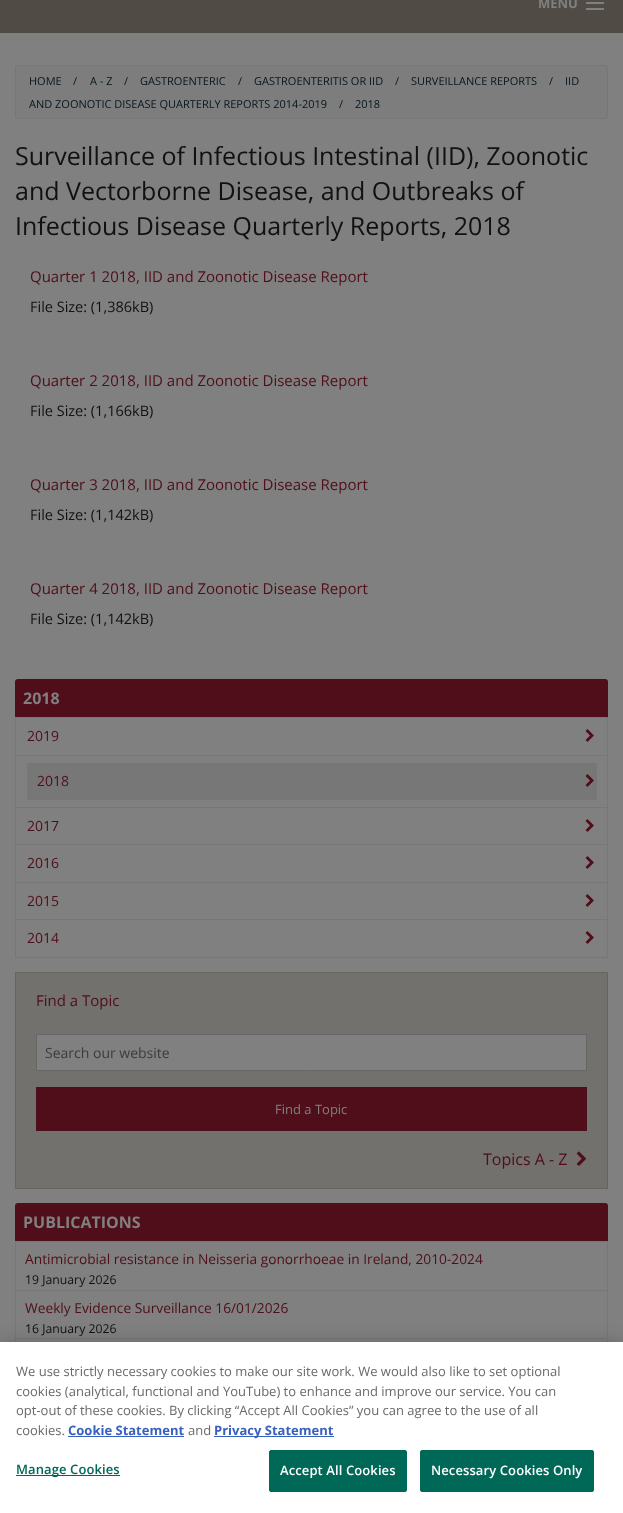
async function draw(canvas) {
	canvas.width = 623;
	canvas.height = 1513;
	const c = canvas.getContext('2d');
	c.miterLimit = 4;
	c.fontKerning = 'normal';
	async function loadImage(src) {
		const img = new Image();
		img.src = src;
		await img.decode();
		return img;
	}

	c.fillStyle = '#808080';
	c.fillRect(0, 0, 623, 1513);
	c.fillStyle = '#504b44';
	c.fillRect(0, 0, 623, 33);
	c.font = 'bold 13px Open Sans';
	c.fillStyle = '#808080';
	c.fillText('MENU', 538, 8);
	c.fillRect(586, 8, 18, 2);
	c.fillRect(586, 2, 18, 2);
	c.fillStyle = '#7d7d7d';
	c.beginPath();
	c.roundRect(15.5, 65.5, 592, 53, 2.5);
	c.fill();
	c.strokeStyle = '#777';
	c.stroke();
	c.font = '11px Open Sans';
	c.fillStyle = '#04151d';
	for (const [text, x, y] of [
		['HOME', 29, 85],
		['/', 73, 85],
		['A - Z', 90, 85],
		['/', 124, 85],
		['GASTROENTERIC', 140, 85],
		['/', 238, 85],
		['GASTROENTERITIS OR IID', 254, 85],
		['/', 395, 85],
		['SURVEILLANCE REPORTS', 411, 85],
		['/', 549, 85],
		['IID', 565, 85],
		['AND ZOONOTIC DISEASE QUARTERLY REPORTS 2014-2019', 29, 108],
		['/', 339, 108],
		['2018', 355, 108],
	]) {
		c.fillText(text, x, y);
	}
	c.font = '25px Open Sans';
	c.fillStyle = '#111';
	for (const [text, x, y] of [
		['Surveillance of Infectious Intestinal (IID), Zoonotic', 15, 165],
		['and Vectorborne Disease, and Outbreaks of', 15, 200],
		['Infectious Disease Quarterly Reports, 2018', 15, 235],
	]) {
		c.fillText(text, x, y);
	}
	c.font = '15px Open Sans';
	c.fillStyle = '#4f0e1a';
	c.fillText('Quarter 1 2018, IID and Zoonotic Disease Report', 30, 282);
	c.font = '14.5px Open Sans';
	c.fillStyle = '#111';
	c.fillText('File Size: (1,386kB)', 30, 312);
	c.font = '15px Open Sans';
	c.fillStyle = '#4f0e1a';
	c.fillText('Quarter 2 2018, IID and Zoonotic Disease Report', 30, 386);
	c.font = '14.5px Open Sans';
	c.fillStyle = '#111';
	c.fillText('File Size: (1,166kB)', 30, 416);
	c.font = '15px Open Sans';
	c.fillStyle = '#4f0e1a';
	c.fillText('Quarter 3 2018, IID and Zoonotic Disease Report', 30, 490);
	c.font = '14.5px Open Sans';
	c.fillStyle = '#111';
	c.fillText('File Size: (1,142kB)', 30, 520);
	c.font = '15px Open Sans';
	c.fillStyle = '#4f0e1a';
	c.fillText('Quarter 4 2018, IID and Zoonotic Disease Report', 30, 594);
	c.font = '14.5px Open Sans';
	c.fillStyle = '#111';
	c.fillText('File Size: (1,142kB)', 30, 624);
	c.fillStyle = '#4f0e1a';
	c.beginPath();
	c.roundRect(15, 679, 593, 38, [3, 3, 0, 0]);
	c.fill();
	c.font = 'bold 16px Open Sans';
	c.fillStyle = '#808080';
	c.fillText('2018', 23, 704);
	for (const [x, y, w, h, color] of [
		[607, 717, 1, 241, '#777'],
		[15, 717, 1, 241, '#777'],
		[16, 717, 591, 1, '#777'],
		[16, 755, 591, 1, '#777'],
	]) {
		c.fillStyle = color;
		c.fillRect(x, y, w, h);
	}
	c.font = '14px Open Sans';
	c.fillStyle = '#4f0e1a';
	c.fillText('2019', 27, 741);
	c.drawImage(await loadImage('img1.png'), 585, 729, 9, 13);
	c.fillStyle = '#777';
	c.fillRect(16, 807, 591, 1);
	c.fillRect(27, 763, 570, 37);
	c.fillStyle = '#4f0e1a';
	c.fillText('2018', 37, 786);
	c.drawImage(await loadImage('img2.png'), 585, 774, 9, 13);
	c.fillStyle = '#777';
	c.fillRect(16, 844, 591, 1);
	c.fillStyle = '#4f0e1a';
	c.fillText('2017', 27, 831);
	c.drawImage(await loadImage('img1.png'), 585, 819, 9, 13);
	c.fillStyle = '#777';
	c.fillRect(16, 882, 591, 1);
	c.fillStyle = '#4f0e1a';
	c.fillText('2016', 27, 868);
	c.drawImage(await loadImage('img1.png'), 585, 856, 9, 13);
	c.fillStyle = '#777';
	c.fillRect(16, 919, 591, 1);
	c.fillStyle = '#4f0e1a';
	c.fillText('2015', 27, 906);
	c.drawImage(await loadImage('img1.png'), 585, 894, 9, 13);
	c.fillStyle = '#777';
	c.fillRect(16, 957, 591, 1);
	c.fillStyle = '#4f0e1a';
	c.fillText('2014', 27, 943);
	c.drawImage(await loadImage('img1.png'), 585, 931, 9, 13);
	c.fillStyle = '#72716e';
	c.beginPath();
	c.rect(15.5, 972.5, 592, 216);
	c.fill();
	c.strokeStyle = '#676460';
	c.stroke();
	c.font = '15px Open Sans';
	c.fillStyle = '#4f0e1a';
	c.fillText('Find a Topic', 36, 1006);
	c.fillStyle = '#808080';
	c.beginPath();
	c.rect(36.5, 1034.5, 550, 36);
	c.fill();
	c.strokeStyle = '#666';
	c.stroke();
	c.font = '14px Open Sans';
	c.fillStyle = '#3b3b3b';
	c.fillText('Search our website', 45, 1058);
	c.fillStyle = '#4f0e1a';
	c.fillRect(36, 1087, 551, 44);
	c.font = '13px Open Sans';
	c.fillStyle = '#808080';
	c.fillText('Find a Topic', 275, 1114);
	c.font = '16px Open Sans';
	c.fillStyle = '#4f0e1a';
	c.fillText('Topics A - Z', 483, 1165);
	c.drawImage(await loadImage('img3.png'), 576, 1151, 10, 15);
	c.beginPath();
	c.roundRect(15, 1203, 593, 38, [3, 3, 0, 0]);
	c.fill();
	c.font = 'bold 16px Open Sans';
	c.fillStyle = '#808080';
	c.fillText('PUBLICATIONS', 23, 1228);
	for (const [x, y, w, h, color] of [
		[607, 1241, 1, 101, '#777'],
		[15, 1241, 1, 101, '#777'],
		[16, 1241, 591, 1, '#777'],
	]) {
		c.fillStyle = color;
		c.fillRect(x, y, w, h);
	}
	c.font = '13.75px Open Sans';
	c.fillStyle = '#4f0e1a';
	c.fillText('Antimicrobial resistance in Neisseria gonorrhoeae in Ireland, 2010-2024', 25, 1264);
	c.font = '12.25px Open Sans';
	c.fillStyle = '#111';
	c.fillText('19 January 2026', 25, 1284);
	c.fillStyle = '#777';
	c.fillRect(16, 1290, 591, 1);
	c.font = '13.75px Open Sans';
	c.fillStyle = '#4f0e1a';
	c.fillText('Weekly Evidence Surveillance 16/01/2026', 25, 1313);
	c.font = '12.25px Open Sans';
	c.fillStyle = '#111';
	c.fillText('16 January 2026', 25, 1333);
	c.fillStyle = '#777';
	c.fillRect(16, 1338, 591, 1);
	c.fillStyle = '#00000033';
	c.filter = 'blur(9px)';
	c.beginPath();
	c.rect(0, 1342, 623, 171);
	c.fill();
	c.filter = 'none';
	c.fillStyle = '#fff';
	c.fillRect(0, 1342, 623, 171);
	c.font = '13px Open Sans';
	c.fillStyle = '#696969';
	for (const [text, x, y] of [
		['We use strictly necessary cookies to make our site work. We would also like to set optional', 16, 1376],
		['cookies (analytical, functional and YouTube) to enhance and improve our service. You can', 16, 1396],
		['opt-out of these cookies. By clicking “Accept All Cookies” you can agree to the use of all', 16, 1415],
		['cookies.', 16, 1435],
	]) {
		c.fillText(text, x, y);
	}
	c.font = 'bold 13px Open Sans';
	c.fillStyle = '#3860be';
	c.fillText('Cookie Statement', 68, 1435);
	c.fillRect(68, 1436, 116, 1);
	c.font = '13px Open Sans';
	c.fillStyle = '#696969';
	c.fillText('and', 188, 1435);
	c.fillStyle = '#3860be';
	c.fillRect(214, 1436, 120, 1);
	c.font = 'bold 13px Open Sans';
	c.fillText('Privacy Statement', 214, 1435);
	c.fillStyle = '#006857';
	c.fillRect(16, 1475, 104, 1);
	c.letterSpacing = '0.1px';
	c.font = '600 13px Open Sans';
	c.fillText('Manage Cookies', 16, 1474);
	c.beginPath();
	c.roundRect(269.5, 1450.5, 137, 41, 1.5);
	c.fill();
	c.strokeStyle = '#006857';
	c.stroke();
	c.fillStyle = '#fff';
	c.fillText('Accept All Cookies', 280, 1475);
	c.fillStyle = '#006857';
	c.beginPath();
	c.roundRect(420.5, 1450.5, 173, 41, 1.5);
	c.fill();
	c.stroke();
	c.fillStyle = '#fff';
	c.fillText('Necessary Cookies Only', 431, 1475);
}

draw(document.querySelector('canvas'));
